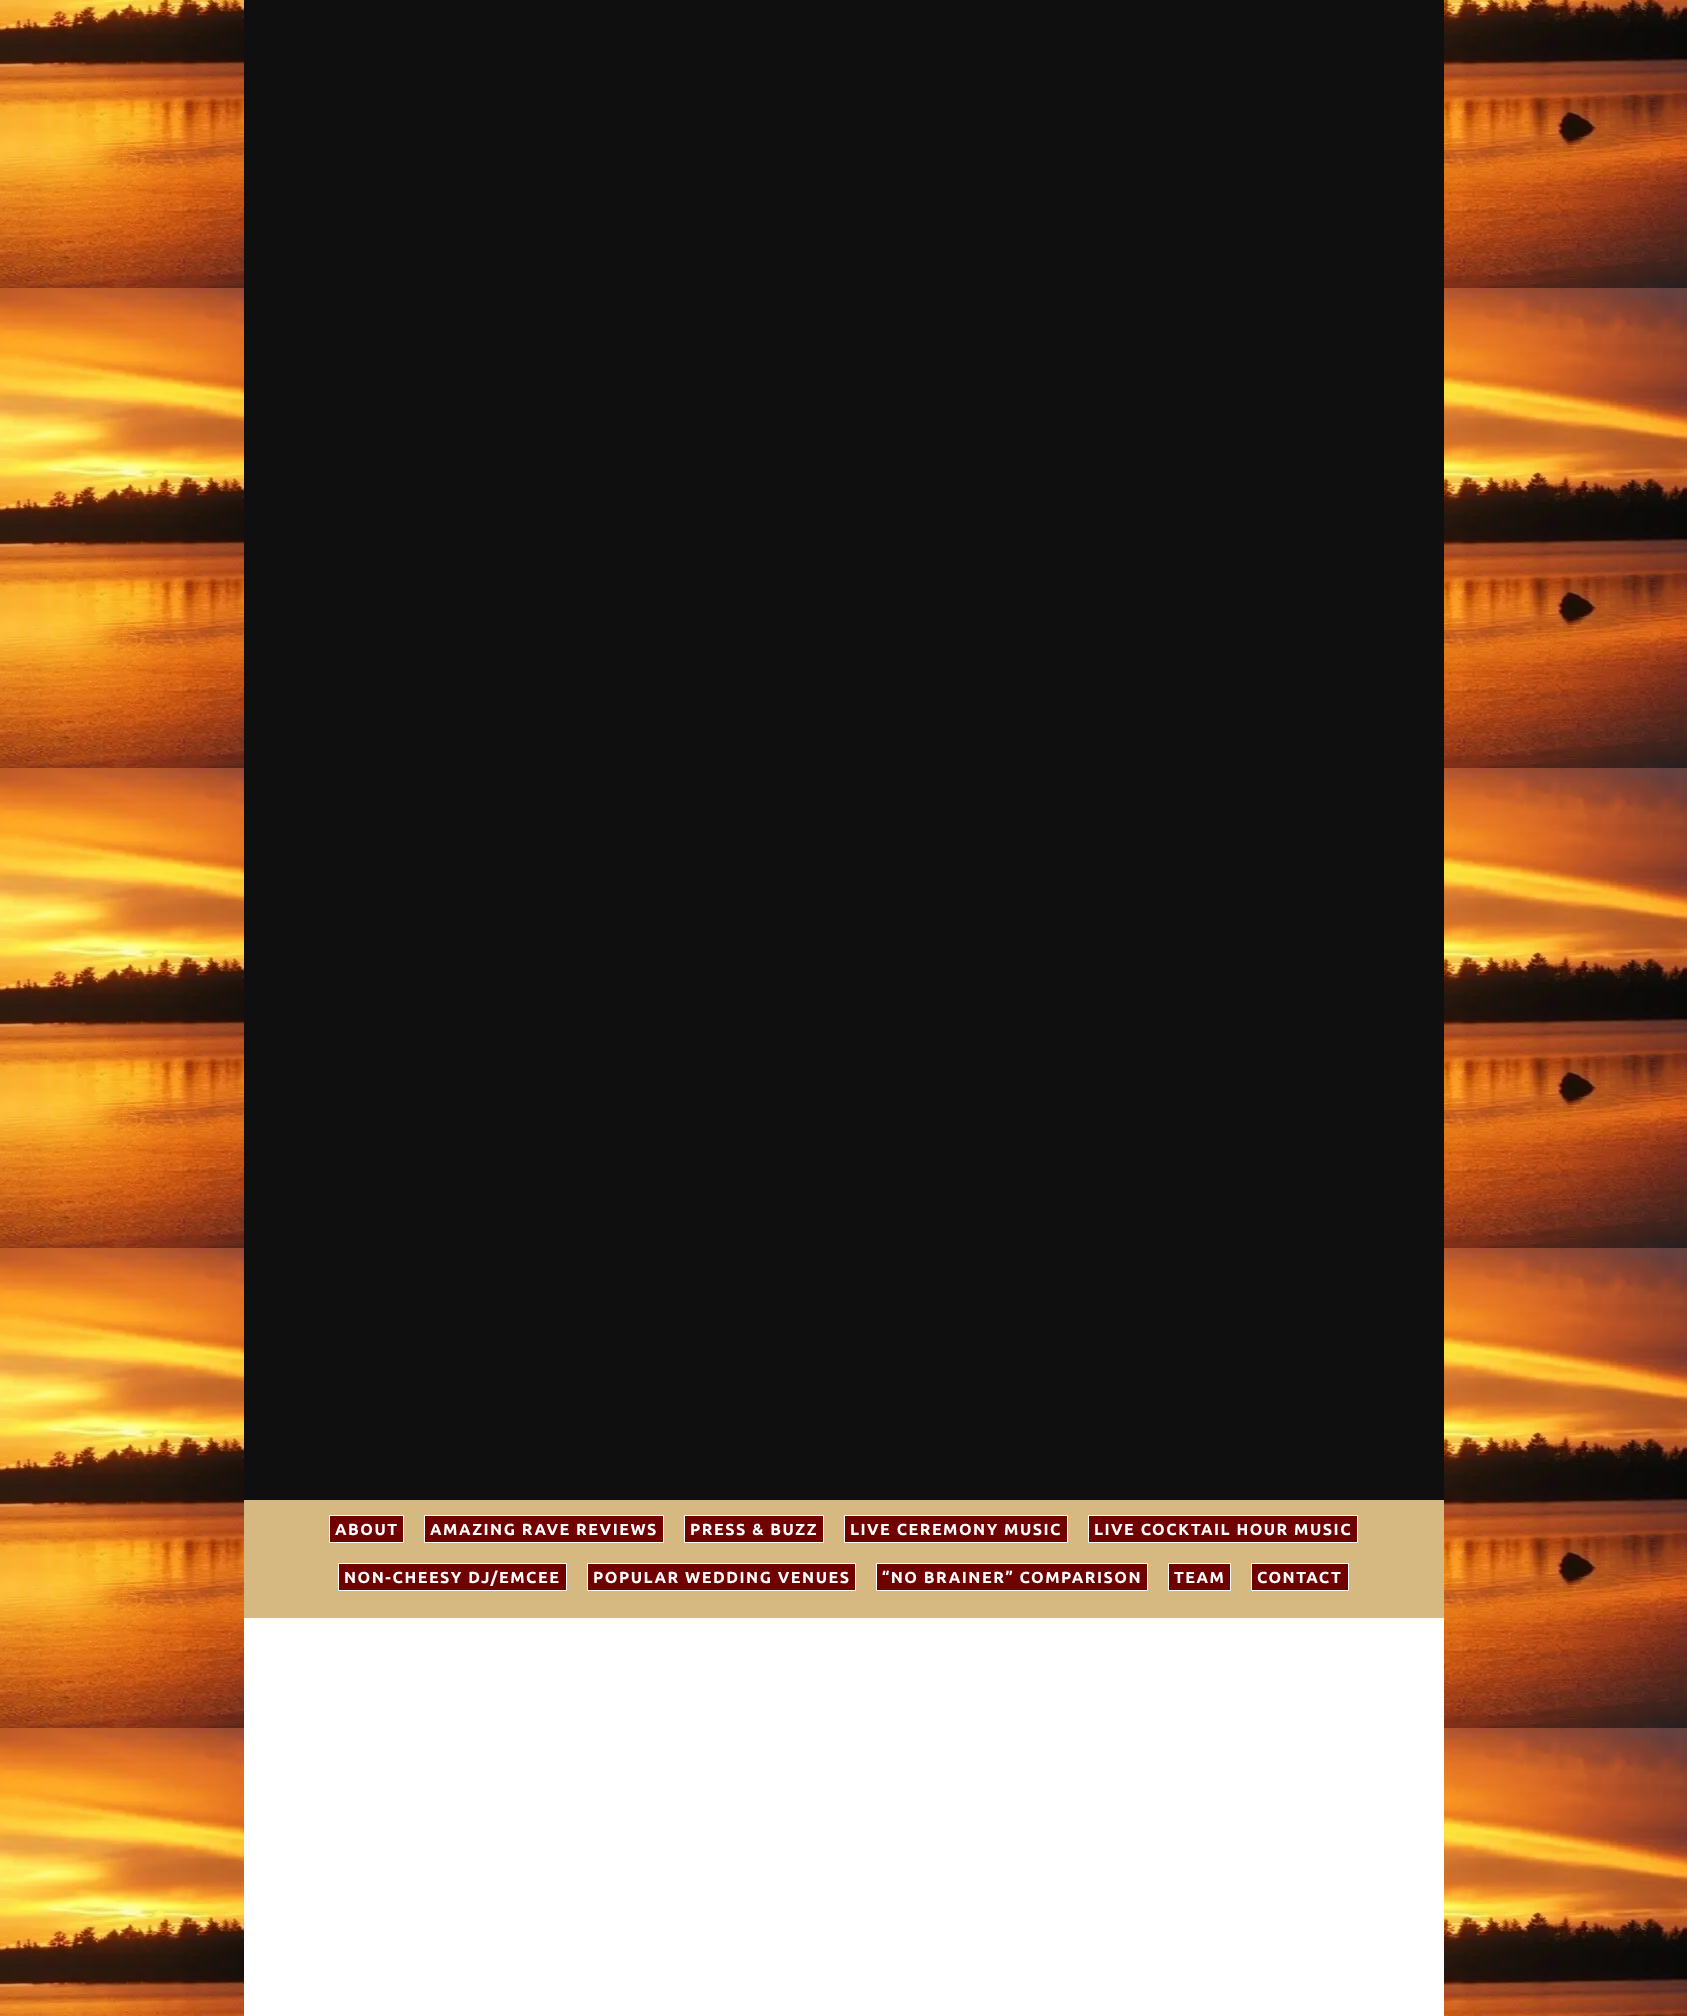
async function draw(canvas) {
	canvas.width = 1687;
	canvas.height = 2016;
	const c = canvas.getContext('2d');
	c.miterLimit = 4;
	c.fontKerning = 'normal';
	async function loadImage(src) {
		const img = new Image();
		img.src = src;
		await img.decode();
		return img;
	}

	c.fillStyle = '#fff';
	c.fillRect(0, 0, 1687, 2016);
	c.drawImage(await loadImage('img1.png'), 0, 0, 1687, 2016);
	for (const [x, y, w, h, color] of [
		[244, 1618, 1200, 398, '#fff'],
		[244, 0, 1200, 1500, '#0f0f0f'],
		[244, 1500, 1200, 118, '#d6b881'],
	]) {
		c.fillStyle = color;
		c.fillRect(x, y, w, h);
	}
	c.fillStyle = '#700000';
	c.beginPath();
	c.rect(329.5, 1515.5, 74, 27);
	c.fill();
	c.strokeStyle = '#fff';
	c.stroke();
	c.letterSpacing = '1.5px';
	c.font = 'bold 16px Ubuntu';
	c.fillStyle = '#fff';
	c.fillText('ABOUT', 335, 1535);
	c.fillStyle = '#700000';
	c.beginPath();
	c.rect(424.5, 1515.5, 239, 27);
	c.fill();
	c.stroke();
	c.fillStyle = '#fff';
	c.fillText('AMAZING RAVE REVIEWS', 430, 1535);
	c.fillStyle = '#700000';
	c.beginPath();
	c.rect(684.5, 1515.5, 139, 27);
	c.fill();
	c.stroke();
	c.fillStyle = '#fff';
	c.fillText('PRESS & BUZZ', 690, 1535);
	c.fillStyle = '#700000';
	c.beginPath();
	c.rect(844.5, 1515.5, 223, 27);
	c.fill();
	c.stroke();
	c.fillStyle = '#fff';
	c.fillText('LIVE CEREMONY MUSIC', 850, 1535);
	c.fillStyle = '#700000';
	c.beginPath();
	c.rect(1088.5, 1515.5, 269, 27);
	c.fill();
	c.stroke();
	c.fillStyle = '#fff';
	c.fillText('LIVE COCKTAIL HOUR MUSIC', 1094, 1535);
	c.fillStyle = '#700000';
	c.beginPath();
	c.rect(338.5, 1563.5, 228, 27);
	c.fill();
	c.stroke();
	c.fillStyle = '#fff';
	c.fillText('NON-CHEESY DJ/EMCEE', 344, 1583);
	c.fillStyle = '#700000';
	c.beginPath();
	c.rect(587.5, 1563.5, 268, 27);
	c.fill();
	c.stroke();
	c.fillStyle = '#fff';
	c.fillText('POPULAR WEDDING VENUES', 593, 1583);
	c.fillStyle = '#700000';
	c.beginPath();
	c.rect(876.5, 1563.5, 271, 27);
	c.fill();
	c.stroke();
	c.fillStyle = '#fff';
	c.fillText('“NO BRAINER” COMPARISON', 882, 1583);
	c.fillStyle = '#700000';
	c.beginPath();
	c.rect(1168.5, 1563.5, 62, 27);
	c.fill();
	c.stroke();
	c.fillStyle = '#fff';
	c.fillText('TEAM', 1174, 1583);
	c.fillStyle = '#700000';
	c.beginPath();
	c.rect(1251.5, 1563.5, 97, 27);
	c.fill();
	c.stroke();
	c.fillStyle = '#fff';
	c.fillText('CONTACT', 1257, 1583);
}

draw(document.querySelector('canvas'));
